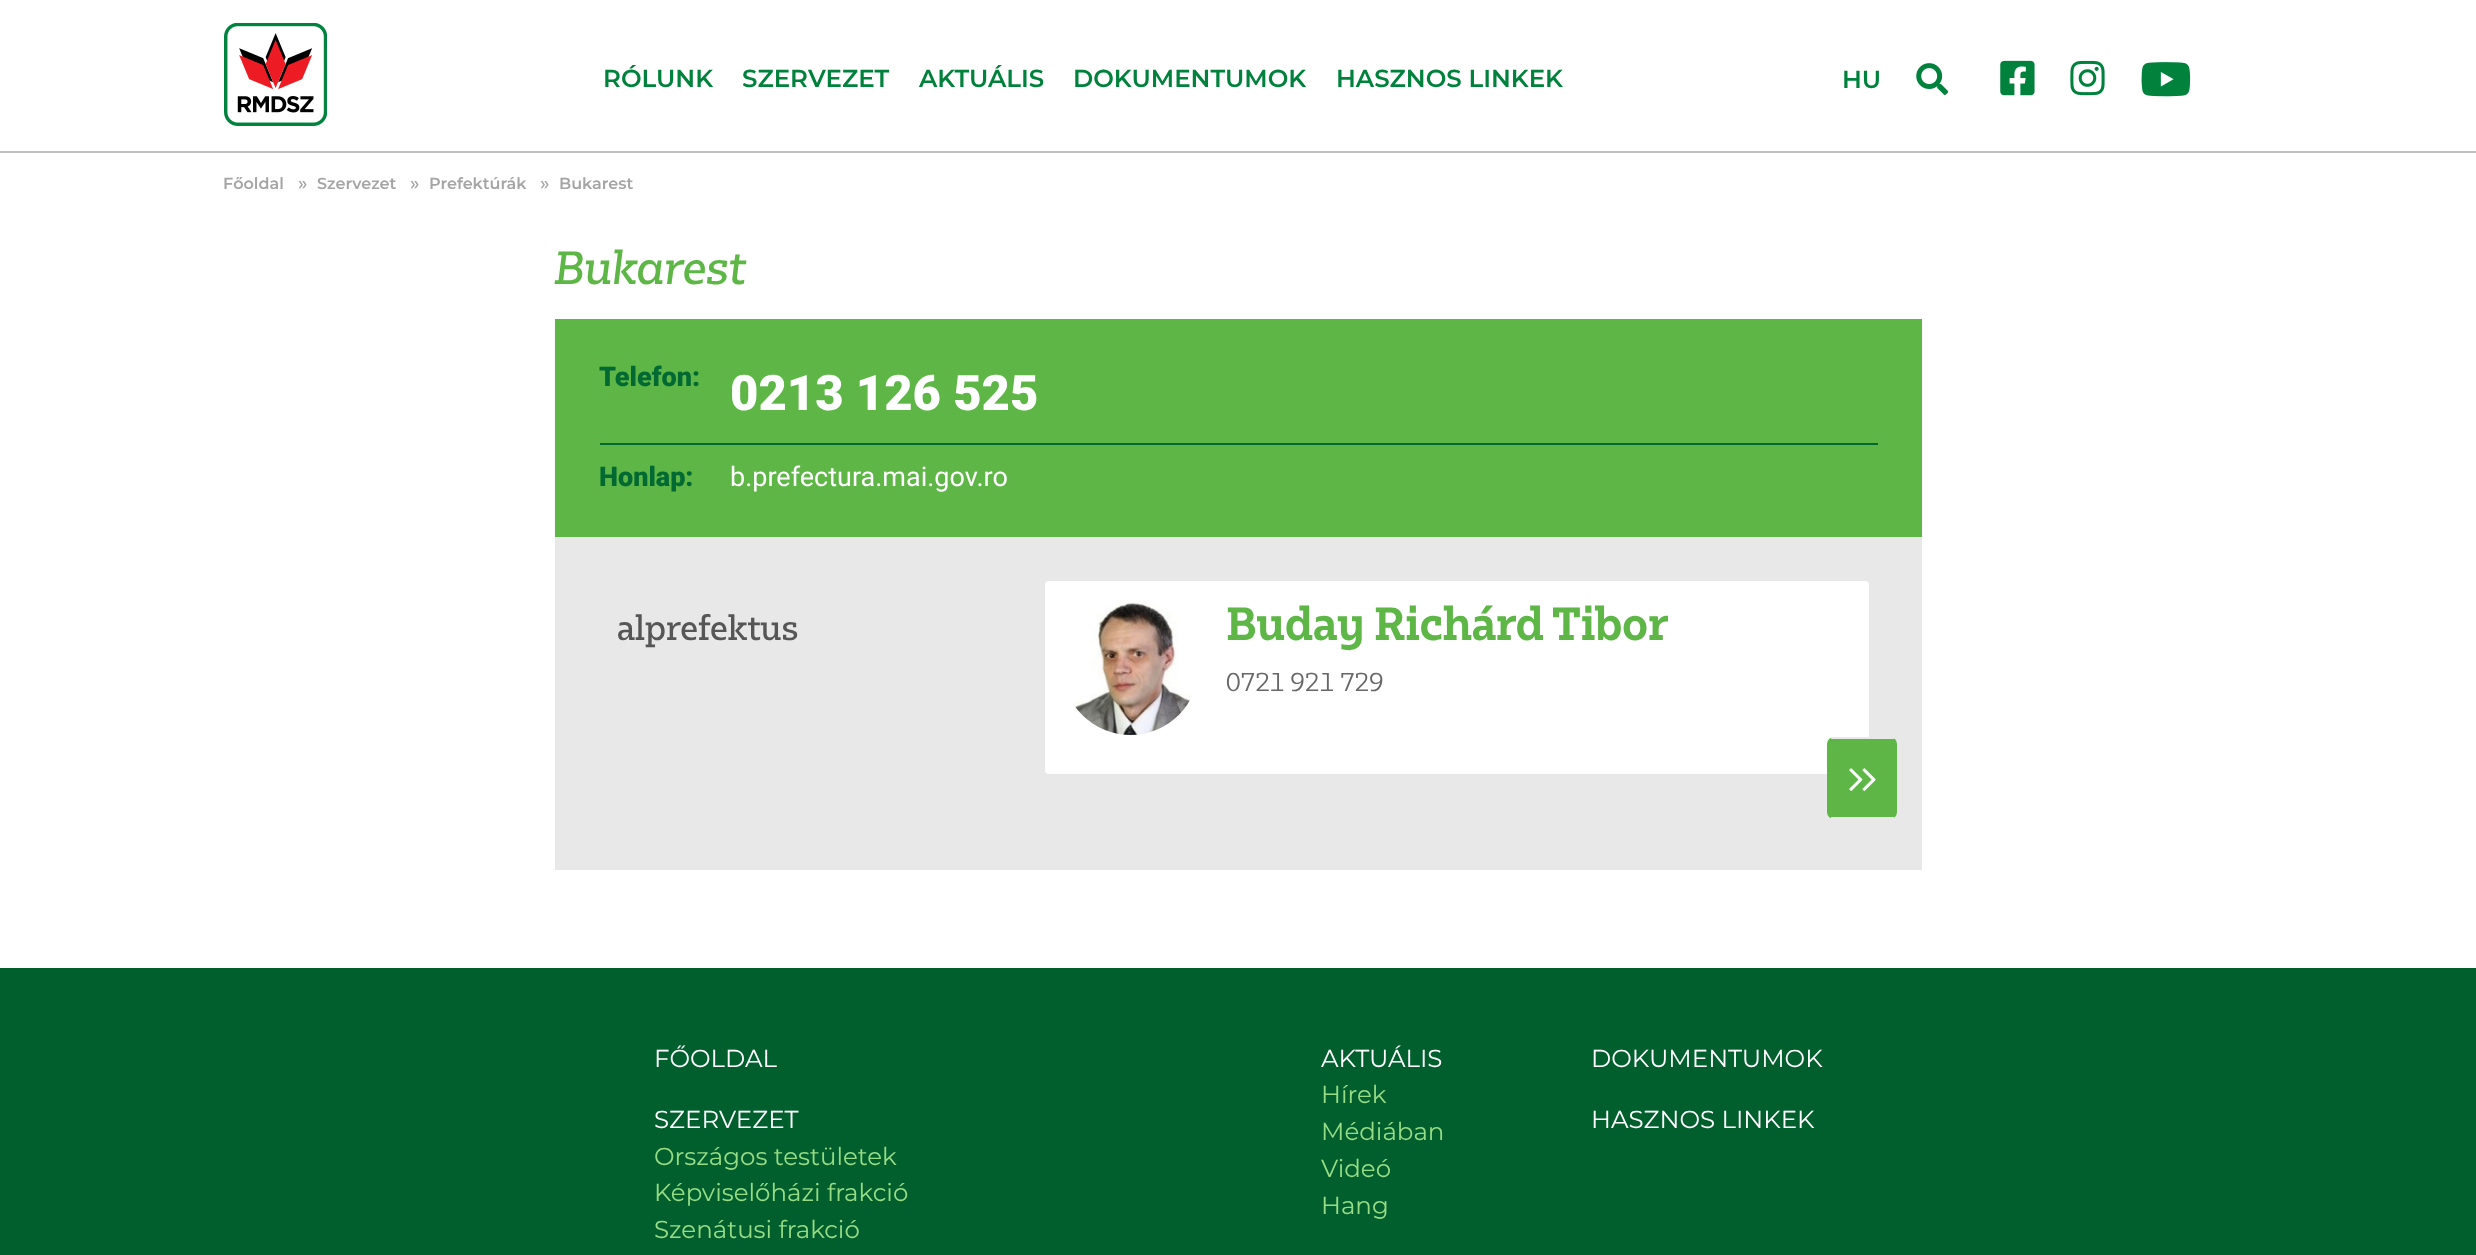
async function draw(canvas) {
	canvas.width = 2476;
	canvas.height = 1255;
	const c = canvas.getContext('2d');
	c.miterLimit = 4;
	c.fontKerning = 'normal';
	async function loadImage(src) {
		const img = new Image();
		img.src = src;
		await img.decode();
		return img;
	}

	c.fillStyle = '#fff';
	c.fillRect(0, 0, 2476, 1255);
	c.fillStyle = '#bfbfbf';
	c.fillRect(0, 151, 2476, 2);
	c.drawImage(await loadImage('img1.png'), 224, 23, 103, 103);
	c.font = '600 24.5px Montserrat';
	c.fillStyle = '#00823d';
	for (const [text, x, y] of [
		['RÓLUNK', 603, 87],
		['SZERVEZET', 742, 87],
		['AKTUÁLIS', 919, 87],
		['DOKUMENTUMOK', 1073, 87],
		['HASZNOS LINKEK', 1336, 87],
		['HU', 1842, 88],
	]) {
		c.fillText(text, x, y);
	}
	c.drawImage(await loadImage('img2.png'), 1916, 63, 33, 32);
	c.drawImage(await loadImage('img3.png'), 2000, 60, 35, 36);
	c.drawImage(await loadImage('img4.png'), 2070, 60, 35, 36);
	c.drawImage(await loadImage('img5.png'), 2141, 62, 50, 35);
	c.font = '600 16px Montserrat';
	c.fillStyle = '#a5a5a5';
	c.fillText('Főoldal', 223, 189);
	c.font = '500 16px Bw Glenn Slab';
	c.fillText('»', 298, 189);
	c.font = '600 16px Montserrat';
	c.fillText('Szervezet', 317, 189);
	c.font = '500 16px Bw Glenn Slab';
	c.fillText('»', 410, 189);
	c.font = '600 16px Montserrat';
	c.fillText('Prefektúrák', 429, 189);
	c.font = '500 16px Bw Glenn Slab';
	c.fillText('»', 540, 189);
	c.font = '600 16px Montserrat';
	c.fillText('Bukarest', 559, 189);
	c.font = 'italic 500 44.1px Bw Glenn Slab';
	c.fillStyle = '#5db646';
	c.fillText('Bukarest', 554, 284);
	c.fillRect(555, 319, 1367, 218);
	c.fillStyle = '#026933';
	c.fillRect(600, 443, 1278, 2);
	c.font = '900 27px Roboto';
	c.fillText('Telefon:', 599, 386);
	c.font = '900 49px Roboto';
	c.fillStyle = '#fff';
	c.fillText('0213 126 525', 730, 410);
	c.font = '900 27px Roboto';
	c.fillStyle = '#026933';
	c.fillText('Honlap:', 599, 486);
	c.font = '27px Roboto';
	c.fillStyle = '#fff';
	c.fillText('b.prefectura.mai.gov.ro', 730, 486);
	c.fillStyle = '#e8e8e8';
	c.fillRect(555, 537, 1367, 333);
	c.font = '500 33px Bw Glenn Slab';
	c.fillStyle = '#565656';
	c.fillText('alprefektus', 617, 640);
	c.fillStyle = '#fff';
	c.beginPath();
	c.roundRect(1045, 581, 824, 193, 4);
	c.fill();
	c.drawImage(await loadImage('img6.png'), 1075, 600, 117, 135);
	c.font = 'bold 44.1px Bw Glenn Slab';
	c.fillStyle = '#5db646';
	c.fillText('Buday Richárd Tibor', 1226, 640);
	c.font = '24.5px Bw Glenn Slab';
	c.fillStyle = '#676767';
	c.fillText('0721 921 729', 1226, 691);
	c.fillStyle = '#5db646';
	c.beginPath();
	c.roundRect(1827, 737, 70, 82, 7);
	c.fill();
	c.fillStyle = '#e8e8e8';
	c.fillRect(1831, 737, 63, 2);
	c.fillRect(1831, 817, 63, 2);
	c.drawImage(await loadImage('img7.png'), 1849, 768, 27, 23);
	c.fillStyle = '#005f2d';
	c.fillRect(0, 968, 2476, 287);
	c.font = '24.5px Montserrat';
	c.fillStyle = '#fff';
	c.fillText('FŐOLDAL', 654, 1067);
	c.fillText('SZERVEZET', 654, 1128);
	c.fillStyle = '#96dc84';
	for (const [text, x, y] of [
		['Országos testületek', 654, 1165],
		['Képviselőházi frakció', 654, 1201],
		['Szenátusi frakció', 654, 1238],
	]) {
		c.fillText(text, x, y);
	}
	c.fillStyle = '#fff';
	c.fillText('AKTUÁLIS', 1321, 1067);
	c.fillStyle = '#96dc84';
	for (const [text, x, y] of [
		['Hírek', 1321, 1103],
		['Médiában', 1321, 1140],
		['Videó', 1321, 1177],
		['Hang', 1321, 1214],
	]) {
		c.fillText(text, x, y);
	}
	c.fillStyle = '#fff';
	c.fillText('DOKUMENTUMOK', 1591, 1067);
	c.fillText('HASZNOS LINKEK', 1591, 1128);
}

draw(document.querySelector('canvas'));
